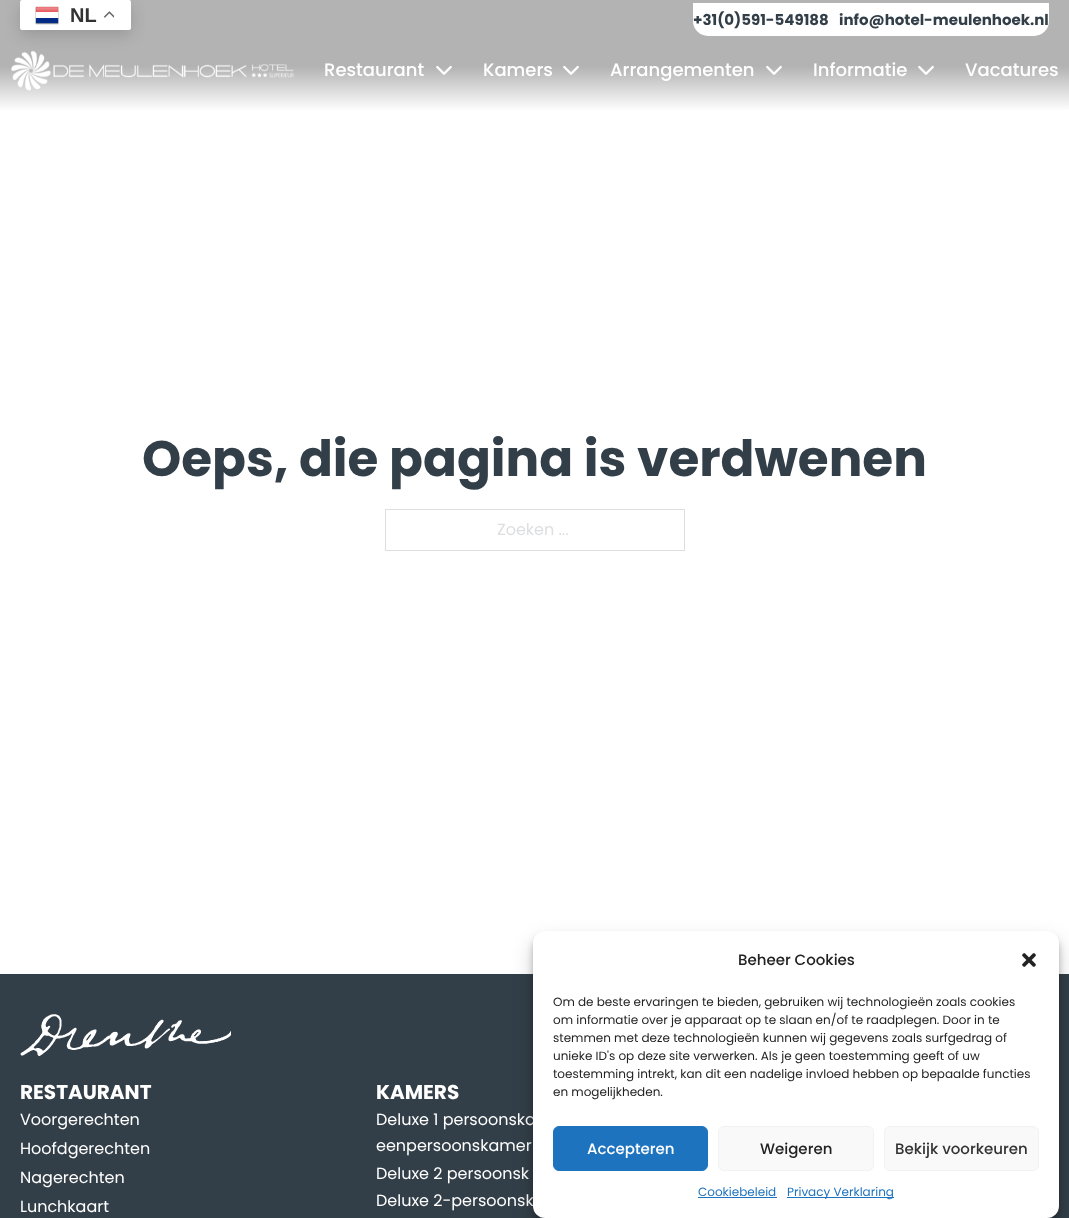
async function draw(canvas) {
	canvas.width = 1069;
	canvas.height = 1218;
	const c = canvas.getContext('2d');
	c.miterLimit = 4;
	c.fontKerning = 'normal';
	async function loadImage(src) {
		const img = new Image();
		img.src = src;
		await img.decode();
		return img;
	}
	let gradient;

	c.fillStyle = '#fff';
	c.fillRect(0, 0, 1069, 1218);
	gradient = c.createLinearGradient(535, 0, 535, 111);
	gradient.addColorStop(0.6, '#b3b3b3');
	gradient.addColorStop(1, '#fff');
	c.fillStyle = gradient;
	c.fillRect(0, 0, 1069, 110);
	c.fillStyle = '#00000026';
	c.filter = 'blur(7.5px)';
	c.beginPath();
	c.roundRect(20, 5, 111, 30, 2);
	c.fill();
	c.filter = 'none';
	c.fillStyle = '#fff';
	c.beginPath();
	c.roundRect(20, 0, 111, 30, 2);
	c.fill();
	c.drawImage(await loadImage('img1.png'), 35, 6, 24, 19);
	c.font = 'bold 20px Liberation Sans';
	c.fillStyle = '#333';
	c.fillText('NL', 70, 22);
	c.drawImage(await loadImage('img2.png'), 103, 11, 11, 7);
	c.fillStyle = '#fff';
	c.beginPath();
	c.roundRect(693, 3, 356, 33, [0, 0, 15, 15]);
	c.fill();
	c.font = 'bold 15px Poppins';
	c.fillStyle = '#333f48';
	c.fillText('+31(0)591-549188', 693, 25);
	c.fillText('info@hotel-meulenhoek.nl', 839, 25);
	c.drawImage(await loadImage('img3.png'), 11, 50, 283, 41);
	c.font = '500 18px Poppins';
	c.fillStyle = '#fff';
	c.fillText('Restaurant', 324, 76);
	c.drawImage(await loadImage('img4.png'), 436, 65, 16, 10);
	c.fillText('Kamers', 483, 76);
	c.drawImage(await loadImage('img4.png'), 563, 65, 16, 10);
	c.fillText('Arrangementen', 610, 76);
	c.drawImage(await loadImage('img4.png'), 766, 65, 16, 10);
	c.fillText('Informatie', 813, 76);
	c.drawImage(await loadImage('img4.png'), 918, 65, 16, 10);
	c.fillText('Vacatures', 965, 76);
	c.font = 'bold 50px Poppins';
	c.fillStyle = '#333f48';
	c.fillText('Oeps, die pagina is verdwenen', 142, 476);
	c.strokeStyle = '#dddedf';
	c.strokeRect(385.5, 509.5, 299, 41);
	c.font = '16px Poppins';
	c.fillStyle = '#dddedf';
	c.fillText('Zoeken ...', 497, 535);
	c.fillStyle = '#333f48';
	c.fillRect(0, 974, 1069, 244);
	c.drawImage(await loadImage('img5.png'), 20, 1014, 211, 42);
	c.font = 'bold 20px Poppins';
	c.fillStyle = '#fff';
	c.fillText('RESTAURANT', 20, 1099);
	c.font = '16px Poppins';
	for (const [text, x, y] of [
		['Voorgerechten', 20, 1125],
		['Hoofdgerechten', 20, 1154],
		['Nagerechten', 20, 1183],
		['Lunchkaart', 20, 1212],
	]) {
		c.fillText(text, x, y);
	}
	c.font = 'bold 20px Poppins';
	c.fillText('KAMERS', 376, 1099);
	c.font = '16px Poppins';
	for (const [text, x, y] of [
		['Deluxe 1 persoonska', 376, 1125],
		['eenpersoonskamer', 376, 1151],
		['Deluxe 2 persoonsk', 376, 1179],
		['Deluxe 2-persoonsk', 376, 1206],
	]) {
		c.fillText(text, x, y);
	}
	c.fillStyle = '#0000003b';
	c.filter = 'blur(3px)';
	c.beginPath();
	c.roundRect(533, 937, 526, 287, 12);
	c.fill();
	c.filter = 'none';
	c.fillStyle = '#00000030';
	c.filter = 'blur(10px)';
	c.beginPath();
	c.roundRect(533, 941, 526, 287, 12);
	c.fill();
	c.filter = 'none';
	c.fillStyle = '#fff';
	c.beginPath();
	c.roundRect(533, 931, 526, 287, 12);
	c.fill();
	c.font = '500 15px Poppins';
	c.fillStyle = '#222';
	c.fillText('Beheer Cookies', 738, 965);
	c.drawImage(await loadImage('img6.png'), 1022, 953, 14, 14);
	c.font = '12px Poppins';
	for (const [text, x, y] of [
		['Om de beste ervaringen te bieden, gebruiken wij technologieën zoals cookies', 553, 1006],
		['om informatie over je apparaat op te slaan en/of te raadplegen. Door in te', 553, 1024],
		['stemmen met deze technologieën kunnen wij gegevens zoals surfgedrag of', 553, 1042],
		['unieke ID\'s op deze site verwerken. Als je geen toestemming geeft of uw', 553, 1060],
		['toestemming intrekt, kan dit een nadelige invloed hebben op bepaalde functies', 553, 1078],
		['en mogelijkheden.', 553, 1096],
	]) {
		c.fillText(text, x, y);
	}
	c.fillStyle = '#1e73be';
	c.beginPath();
	c.roundRect(553.5, 1126.5, 154, 44, 5.5);
	c.fill();
	c.strokeStyle = '#1e73be';
	c.stroke();
	c.font = '500 15px Poppins';
	c.fillStyle = '#fff';
	c.fillText('Accepteren', 587, 1154);
	c.fillStyle = '#f9f9f9';
	c.beginPath();
	c.roundRect(718.5, 1126.5, 155, 44, 5.5);
	c.fill();
	c.strokeStyle = '#f2f2f2';
	c.stroke();
	c.fillStyle = '#222';
	c.fillText('Weigeren', 760, 1154);
	c.fillStyle = '#f9f9f9';
	c.beginPath();
	c.roundRect(884.5, 1126.5, 154, 44, 5.5);
	c.fill();
	c.stroke();
	c.fillStyle = '#333';
	c.fillText('Bekijk voorkeuren', 895, 1154);
	c.font = '12px Poppins';
	c.fillStyle = '#1e73be';
	c.fillText('Cookiebeleid', 698, 1196);
	c.fillRect(698, 1197, 79, 1);
	c.fillRect(787, 1197, 107, 1);
	c.fillText('Privacy Verklaring', 787, 1196);
}

draw(document.querySelector('canvas'));
